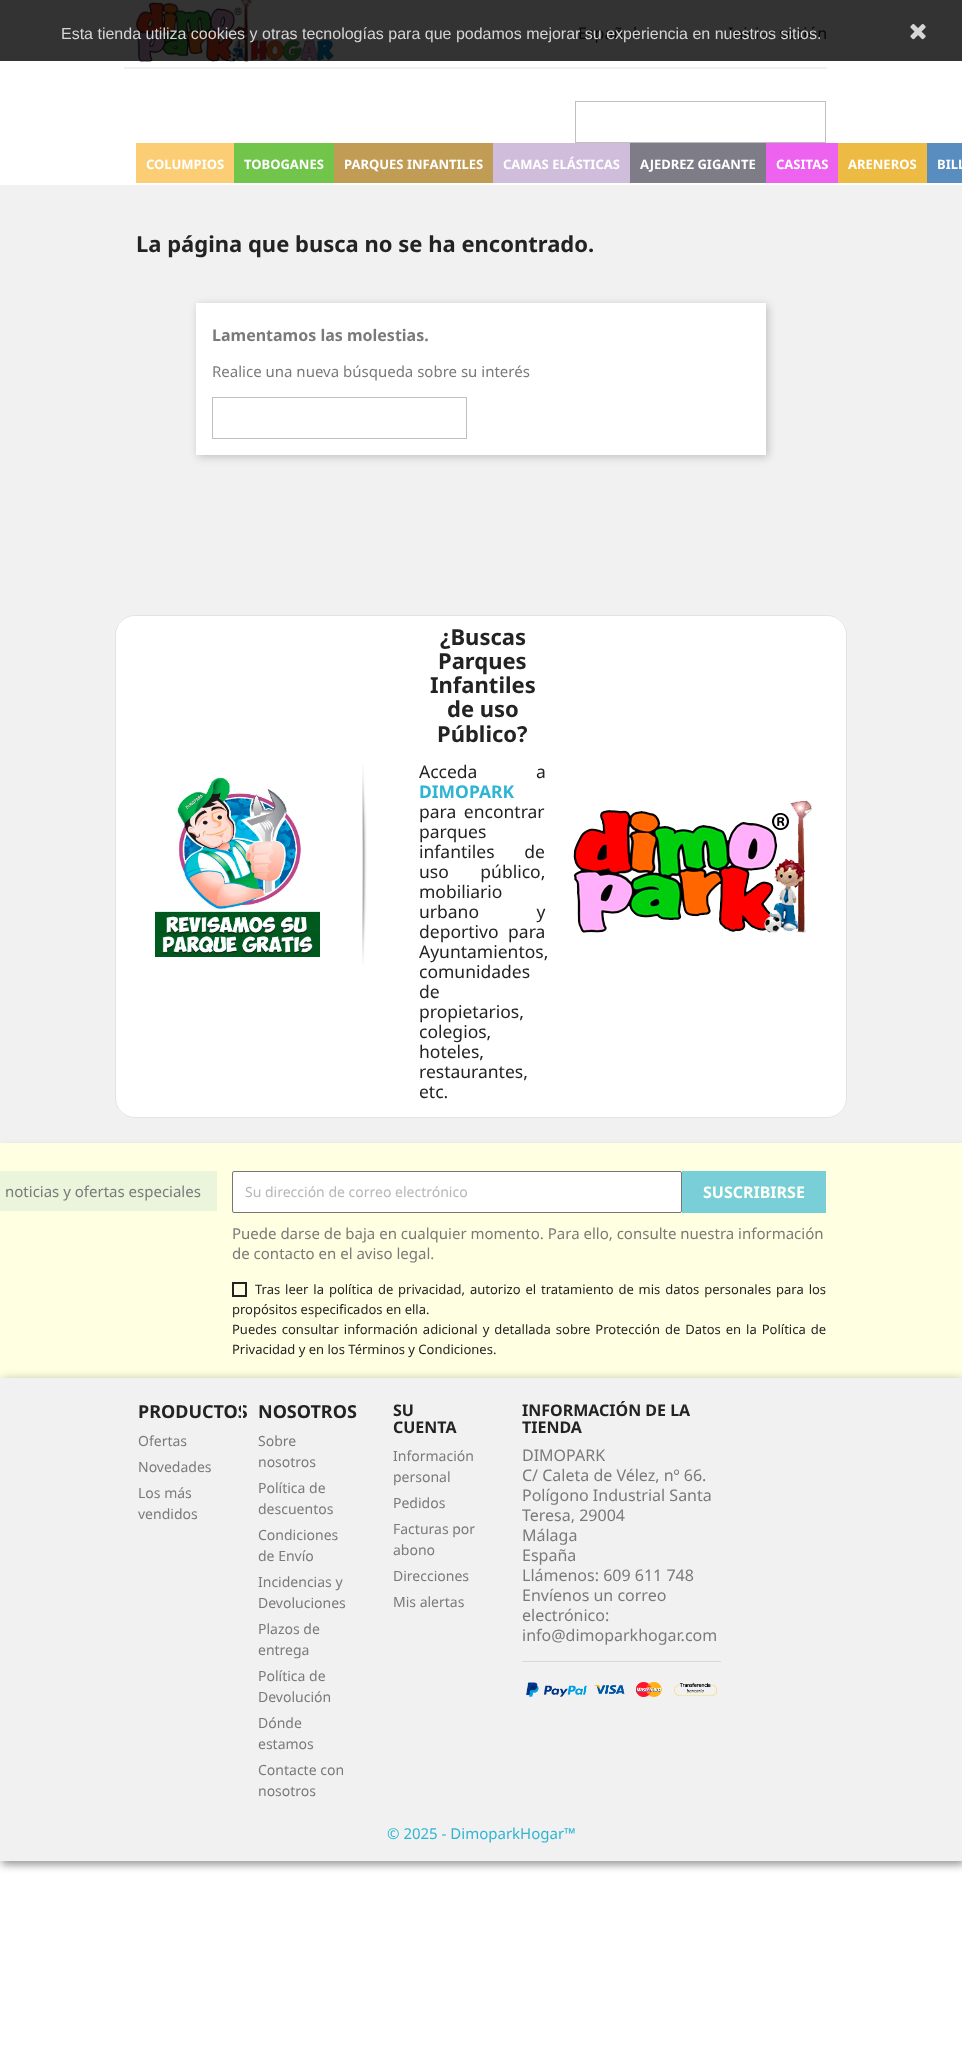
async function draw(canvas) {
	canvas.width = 962;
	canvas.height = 2052;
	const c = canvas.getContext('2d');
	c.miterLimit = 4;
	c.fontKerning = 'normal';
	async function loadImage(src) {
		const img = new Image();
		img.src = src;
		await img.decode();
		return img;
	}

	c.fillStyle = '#fff';
	c.fillRect(0, 0, 962, 2052);
	c.fillStyle = '#333';
	c.fillRect(0, 0, 962, 61);
	c.drawImage(await loadImage('img1.png'), 136, 0, 198, 63);
	c.fillStyle = '#f1f1f1';
	c.fillRect(124, 67, 703, 2);
	c.font = '16px Noto Sans';
	c.fillStyle = '#070707';
	c.fillText('Español', 578, 39);
	c.fillText('Iniciar sesión', 728, 39);
	c.strokeStyle = '#bfbfbf';
	c.strokeRect(575.5, 101.5, 250, 41);
	c.fillStyle = '#fbce75';
	c.fillRect(136, 143, 98, 40);
	c.font = 'bold 13px Noto Sans';
	c.fillStyle = '#fff';
	c.fillText('COLUMPIOS', 146, 169);
	c.fillStyle = '#70c54a';
	c.fillRect(234, 143, 100, 40);
	c.fillStyle = '#fff';
	c.fillText('TOBOGANES', 244, 169);
	c.fillStyle = '#c09c55';
	c.fillRect(334, 143, 159, 40);
	c.fillStyle = '#fff';
	c.fillText('PARQUES INFANTILES', 344, 169);
	c.fillStyle = '#d0bddb';
	c.fillRect(493, 143, 137, 40);
	c.fillStyle = '#fff';
	c.fillText('CAMAS ELÁSTICAS', 503, 169);
	c.fillStyle = '#7e7c87';
	c.fillRect(630, 143, 136, 40);
	c.fillStyle = '#fff';
	c.fillText('AJEDREZ GIGANTE', 640, 169);
	c.fillStyle = '#ed63f0';
	c.fillRect(766, 143, 72, 40);
	c.fillStyle = '#fff';
	c.fillText('CASITAS', 776, 169);
	c.fillStyle = '#edbb43';
	c.fillRect(838, 143, 89, 40);
	c.fillStyle = '#fff';
	c.fillText('ARENEROS', 848, 169);
	c.fillStyle = '#598dc0';
	c.fillRect(927, 143, 35, 40);
	c.fillStyle = '#fff';
	c.fillText('BILL', 937, 169);
	c.fillStyle = '#f1f1f1';
	c.fillRect(0, 185, 962, 958);
	c.font = 'bold 22px Noto Sans';
	c.fillStyle = '#232323';
	c.fillText('La página que busca no se ha encontrado.', 136, 252);
	c.fillStyle = '#00000033';
	c.filter = 'blur(4px)';
	c.beginPath();
	c.rect(198, 305, 570, 152);
	c.fill();
	c.filter = 'none';
	c.fillStyle = '#fff';
	c.fillRect(196, 303, 570, 152);
	c.font = 'bold 16px Noto Sans';
	c.fillStyle = '#7a7a7a';
	c.fillText('Lamentamos las molestias.', 212, 341);
	c.font = '15px Noto Sans';
	c.fillText('Realice una nueva búsqueda sobre su interés', 212, 377);
	c.strokeRect(212.5, 397.5, 254, 41);
	c.fillStyle = '#fff';
	c.beginPath();
	c.roundRect(115, 615, 732, 503, 20);
	c.fill();
	c.beginPath();
	c.roundRect(115.5, 615.5, 731, 502, 19.5);
	c.strokeStyle = '#0000001c';
	c.stroke();
	c.drawImage(await loadImage('img2.png'), 155, 777, 165, 180);
	c.drawImage(await loadImage('img3.png'), 362, 764, 5, 202);
	c.font = 'bold 22px Noto Sans';
	c.fillStyle = '#232323';
	for (const [text, x, y] of [
		['¿Buscas', 440, 645],
		['Parques', 438, 669],
		['Infantiles', 430, 693],
		['de uso', 447, 717],
		['Público?', 437, 742],
	]) {
		c.fillText(text, x, y);
	}
	c.wordSpacing = '54px';
	c.font = '17.5px Noto Sans';
	c.fillText('Acceda a', 419, 778);
	c.wordSpacing = '0px';
	c.font = 'bold 17.5px Noto Sans';
	c.fillStyle = '#2fb5d2';
	c.fillText('DIMOPARK', 419, 798);
	c.wordSpacing = '3px';
	c.font = '17.5px Noto Sans';
	c.fillStyle = '#232323';
	c.fillText('para encontrar', 419, 818);
	c.wordSpacing = '0px';
	c.fillText('parques', 419, 838);
	c.wordSpacing = '25px';
	c.fillText('infantiles de', 419, 858);
	c.wordSpacing = '27px';
	c.fillText('uso público,', 419, 878);
	c.wordSpacing = '0px';
	c.fillText('mobiliario', 419, 898);
	c.wordSpacing = '53px';
	c.fillText('urbano y', 419, 918);
	c.wordSpacing = '5px';
	c.fillText('deportivo para', 419, 938);
	c.wordSpacing = '0px';
	for (const [text, x, y] of [
		['Ayuntamientos,', 419, 958],
		['comunidades', 419, 978],
		['de', 419, 998],
		['propietarios,', 419, 1018],
		['colegios,', 419, 1038],
		['hoteles,', 419, 1058],
		['restaurantes,', 419, 1078],
		['etc.', 419, 1098],
	]) {
		c.fillText(text, x, y);
	}
	c.drawImage(await loadImage('img4.png'), 573, 800, 239, 133);
	c.fillStyle = '#00000033';
	c.filter = 'blur(3.5px)';
	c.beginPath();
	c.rect(2, 1147, 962, 718);
	c.fill();
	c.filter = 'none';
	c.fillStyle = '#ffffe2';
	c.fillRect(0, 1143, 962, 235);
	c.fillStyle = '#eaf5dc';
	c.fillRect(0, 1171, 217, 40);
	c.font = '15px Noto Sans';
	c.fillStyle = '#7a7a7a';
	c.fillText('noticias y ofertas especiales', 5, 1197);
	c.fillStyle = '#fff';
	c.beginPath();
	c.roundRect(232.5, 1171.5, 449, 41, 1.5);
	c.fill();
	c.strokeStyle = '#767676';
	c.stroke();
	c.font = '14px Noto Sans';
	c.fillStyle = '#b7b7b7';
	c.fillText('Su dirección de correo electrónico', 245, 1197);
	c.fillStyle = '#78cfd8';
	c.fillRect(682, 1171, 144, 42);
	c.font = 'bold 16px Noto Sans';
	c.fillStyle = '#fffff5';
	c.fillText('SUSCRIBIRSE', 703, 1198);
	c.font = '15px Noto Sans';
	c.fillStyle = '#7a7a7a';
	c.fillText('Puede darse de baja en cualquier momento. Para ello, consulte nuestra información', 232, 1239);
	c.fillText('de contacto en el aviso legal.', 232, 1259);
	c.strokeStyle = '#232323';
	c.lineWidth = 2;
	c.strokeRect(233, 1283, 13, 13);
	c.wordSpacing = '1.5px';
	c.font = '13px Noto Sans';
	c.fillStyle = '#232323';
	c.fillText('Tras leer la política de privacidad, autorizo el tratamiento de mis datos personales para los', 255, 1294);
	c.wordSpacing = '0px';
	c.fillText('propósitos especificados en ella.', 232, 1314);
	c.wordSpacing = '1.6px';
	c.fillText('Puedes consultar información adicional y detallada sobre Protección de Datos en la Política de', 232, 1334);
	c.wordSpacing = '0px';
	c.fillText('Privacidad y en los Términos y Condiciones.', 232, 1354);
	c.fillStyle = '#0000004d';
	c.filter = 'blur(5.5px)';
	c.beginPath();
	c.rect(2, 1380, 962, 483);
	c.fill();
	c.filter = 'none';
	c.fillStyle = '#f1f1f1';
	c.fillRect(0, 1378, 962, 483);
	c.font = 'bold 18px Noto Sans';
	c.fillStyle = '#232323';
	c.fillText('PRODUCTOS', 138, 1418);
	c.font = '14px Noto Sans';
	c.fillStyle = '#7a7a7a';
	for (const [text, x, y] of [
		['Ofertas', 138, 1446],
		['Novedades', 138, 1472],
		['Los más', 138, 1498],
		['vendidos', 138, 1519],
	]) {
		c.fillText(text, x, y);
	}
	c.fillStyle = '#f1f1f1';
	c.fillRect(241, 1402, 2, 17);
	c.font = 'bold 18px Noto Sans';
	c.fillStyle = '#232323';
	c.fillText('NOSOTROS', 258, 1418);
	c.font = '14px Noto Sans';
	c.fillStyle = '#7a7a7a';
	for (const [text, x, y] of [
		['Sobre', 258, 1446],
		['nosotros', 258, 1467],
		['Política de', 258, 1493],
		['descuentos', 258, 1514],
		['Condiciones', 258, 1540],
		['de Envío', 258, 1561],
		['Incidencias y', 258, 1587],
		['Devoluciones', 258, 1608],
		['Plazos de', 258, 1634],
		['entrega', 258, 1655],
		['Política de', 258, 1681],
		['Devolución', 258, 1702],
		['Dónde', 258, 1728],
		['estamos', 258, 1749],
		['Contacte con', 258, 1775],
		['nosotros', 258, 1796],
	]) {
		c.fillText(text, x, y);
	}
	c.font = 'bold 16px Noto Sans';
	c.fillStyle = '#232323';
	c.fillText('SU', 393, 1416);
	c.fillText('CUENTA', 393, 1433);
	c.font = '14px Noto Sans';
	c.fillStyle = '#7a7a7a';
	for (const [text, x, y] of [
		['Información', 393, 1461],
		['personal', 393, 1482],
		['Pedidos', 393, 1508],
		['Facturas por', 393, 1534],
		['abono', 393, 1555],
		['Direcciones', 393, 1581],
		['Mis alertas', 393, 1607],
	]) {
		c.fillText(text, x, y);
	}
	c.font = 'bold 16px Noto Sans';
	c.fillStyle = '#232323';
	c.fillText('INFORMACIÓN DE LA', 522, 1416);
	c.fillText('TIENDA', 522, 1433);
	c.font = '16px Noto Sans';
	c.fillStyle = '#7a7a7a';
	for (const [text, x, y] of [
		['DIMOPARK', 522, 1461],
		['C/ Caleta de Vélez, nº 66.', 522, 1481],
		['Polígono Industrial Santa', 522, 1501],
		['Teresa, 29004', 522, 1521],
		['Málaga', 522, 1541],
		['España', 522, 1561],
		['Llámenos: 609 611 748', 522, 1581],
		['Envíenos un correo', 522, 1601],
		['electrónico:', 522, 1621],
		['info@dimoparkhogar.com', 522, 1641],
	]) {
		c.fillText(text, x, y);
	}
	c.fillStyle = '#d9d9d9';
	c.fillRect(522, 1661, 199, 1);
	c.drawImage(await loadImage('img5.png'), 526, 1682, 192, 15);
	c.font = '15px Noto Sans';
	c.fillStyle = '#2fb5d2';
	c.fillText('© 2025 - DimoparkHogar™', 387, 1839);
	c.save();
	c.beginPath();
	c.rect(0, 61, 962, 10);
	c.clip();
	c.fillStyle = '#ffffffcc';
	c.filter = 'blur(5px)';
	c.beginPath();
	c.rect(0, 0, 962, 61);
	c.fill();
	c.filter = 'none';
	c.restore();
	c.font = '16px Liberation Sans';
	c.fillStyle = '#d5d5d5';
	c.fillText('Esta tienda utiliza cookies y otras tecnologías para que podamos mejorar su experiencia en nuestros sitios.', 61, 39);
	c.drawImage(await loadImage('img6.png'), 910, 24, 16, 16);
}

draw(document.querySelector('canvas'));
